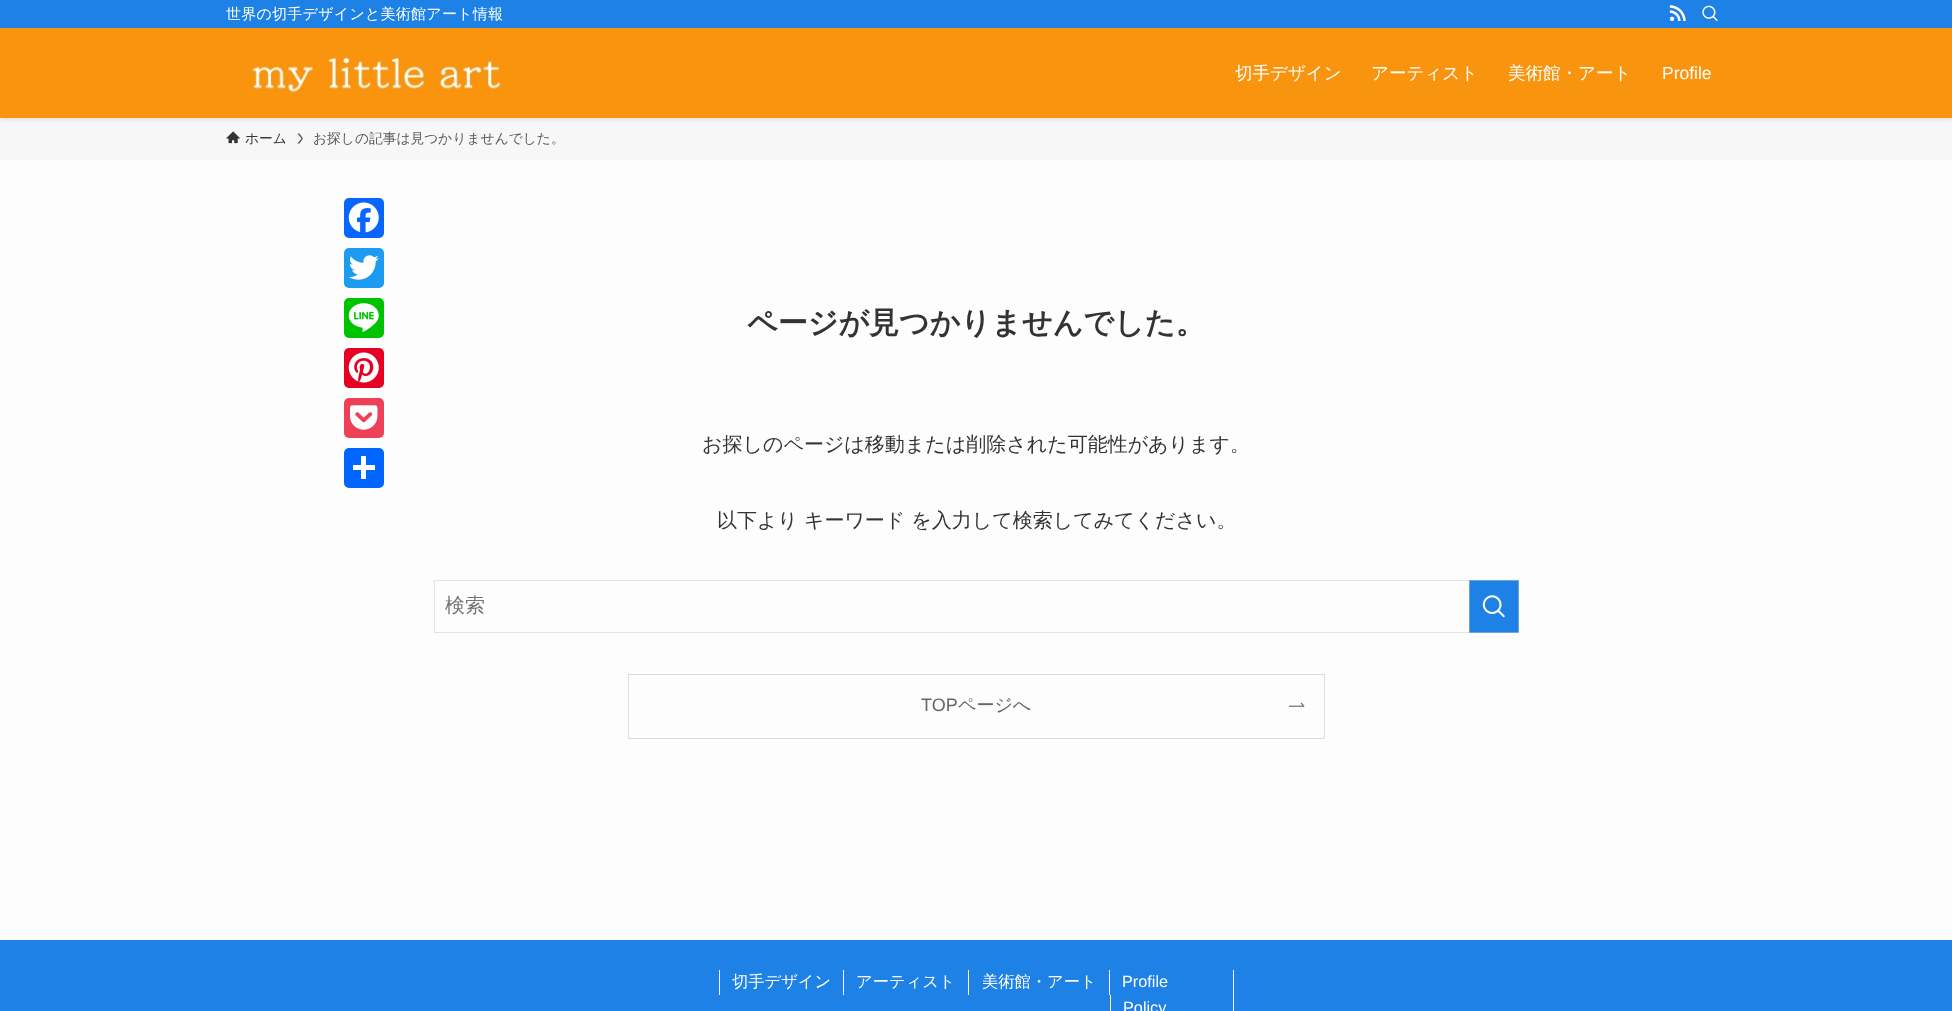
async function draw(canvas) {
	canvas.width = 1952;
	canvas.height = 1011;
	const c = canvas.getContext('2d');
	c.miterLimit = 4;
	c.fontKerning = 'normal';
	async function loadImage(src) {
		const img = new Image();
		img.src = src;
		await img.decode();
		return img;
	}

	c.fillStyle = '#fdfdfd';
	c.fillRect(0, 0, 1952, 1011);
	c.fillStyle = '#f7f7f7';
	c.fillRect(0, 118, 1952, 42);
	c.fillStyle = '#0000001f';
	c.filter = 'blur(2.5px)';
	c.beginPath();
	c.rect(0, 1, 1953, 118);
	c.fill();
	c.filter = 'none';
	c.fillStyle = '#f9940e';
	c.fillRect(0, 28, 1952, 90);
	c.fillStyle = '#1d81e5';
	c.fillRect(0, 0, 1952, 28);
	c.letterSpacing = '0.25px';
	c.font = '500 15px WenQuanYi Zen Hei';
	c.fillStyle = '#fff';
	c.fillText('世界の切手デザインと美術館アート情報', 226, 19);
	c.drawImage(await loadImage('img1.png'), 1669, 5, 17, 16);
	c.drawImage(await loadImage('img2.png'), 1702, 5, 16, 16);
	c.drawImage(await loadImage('img3.png'), 252, 57, 249, 36);
	c.letterSpacing = '0px';
	c.font = '500 17.5px WenQuanYi Zen Hei';
	for (const [text, x, y] of [
		['切手デザイン', 1235, 79],
		['アーティスト', 1371, 79],
		['美術館・アート', 1508, 79],
	]) {
		c.fillText(text, x, y);
	}
	c.font = '17.5px Liberation Sans';
	c.fillText('Profile', 1662, 79);
	c.drawImage(await loadImage('img4.png'), 226, 131, 14, 13);
	c.font = '500 13.75px WenQuanYi Zen Hei';
	c.fillStyle = '#333';
	c.fillText('ホーム', 245, 143);
	c.fillStyle = '#5a5a5a';
	c.beginPath();
	c.moveTo(299.5, 133.5);
	c.lineTo(297.5, 133.5);
	c.lineTo(301.5, 138.5);
	c.lineTo(297.5, 143.5);
	c.lineTo(299.5, 143.5);
	c.lineTo(303, 138.5);
	c.closePath();
	c.fill();
	c.fillText('お探しの記事は見つかりませんでした。', 313, 143);
	c.fillStyle = '#0866ff';
	c.beginPath();
	c.roundRect(344, 198, 40, 40, 5);
	c.fill();
	c.drawImage(await loadImage('img5.png'), 348, 202, 31, 31);
	c.fillStyle = '#1d9bf0';
	c.beginPath();
	c.roundRect(344, 248, 40, 40, 5);
	c.fill();
	c.drawImage(await loadImage('img6.png'), 349, 255, 30, 25);
	c.fillStyle = '#00c300';
	c.beginPath();
	c.roundRect(344, 298, 40, 40, 5);
	c.fill();
	c.drawImage(await loadImage('img7.png'), 348, 303, 31, 29);
	c.fillStyle = '#e60023';
	c.beginPath();
	c.roundRect(344, 348, 40, 40, 5);
	c.fill();
	c.drawImage(await loadImage('img8.png'), 348, 352, 31, 31);
	c.fillStyle = '#ee4056';
	c.beginPath();
	c.roundRect(344, 398, 40, 40, 5);
	c.fill();
	c.drawImage(await loadImage('img9.png'), 350, 405, 28, 25);
	c.fillStyle = '#0166ff';
	c.beginPath();
	c.roundRect(344, 448, 40, 40, 5);
	c.fill();
	c.fillStyle = '#fff';
	c.fillRect(361, 456, 5, 23);
	c.fillRect(353, 465, 22, 5);
	c.font = 'bold 30px WenQuanYi Zen Hei';
	c.fillStyle = '#333';
	c.fillText('ページが見つかりませんでした。', 747, 333);
	c.font = '500 20px WenQuanYi Zen Hei';
	c.fillText('お探しのページは移動または削除された可能性があります。', 702, 451);
	c.fillText('以下より キーワード を入力して検索してみてください。', 717, 527);
	c.strokeStyle = '#e3e3e3';
	c.strokeRect(434.5, 580.5, 1084, 52);
	c.fillStyle = '#757575';
	c.fillText('検索', 445, 612);
	c.fillStyle = '#1d81e5';
	c.beginPath();
	c.rect(1469.5, 580.5, 49, 52);
	c.fill();
	c.strokeStyle = '#72a4d6';
	c.stroke();
	c.drawImage(await loadImage('img10.png'), 1482, 595, 23, 23);
	c.strokeStyle = '#dcdcdc';
	c.strokeRect(628.5, 674.5, 696, 64);
	c.font = '18px Liberation Sans';
	c.fillStyle = '#666';
	c.fillText('TOP', 921, 711);
	c.font = '500 18px WenQuanYi Zen Hei';
	c.fillText('ページへ', 958, 711);
	c.drawImage(await loadImage('img11.png'), 1289, 702, 16, 5);
	for (const [x, y, w, h, color] of [
		[0, 940, 1952, 71, '#1d81e5'],
		[843, 970, 1, 25, '#fff'],
		[719, 970, 1, 25, '#fff'],
	]) {
		c.fillStyle = color;
		c.fillRect(x, y, w, h);
	}
	c.font = '500 16.25px WenQuanYi Zen Hei';
	c.fillText('切手デザイン', 732, 987);
	c.fillRect(968, 970, 1, 25);
	c.fillText('アーティスト', 856, 987);
	c.fillRect(1109, 970, 1, 25);
	c.fillText('美術館・アート', 982, 987);
	c.fillRect(1233, 970, 1, 41);
	c.font = '16.25px Liberation Sans';
	c.fillText('Profile', 1122, 987);
	c.fillRect(1110, 995, 1, 16);
	c.fillText('Policy', 1123, 1013);
}

draw(document.querySelector('canvas'));
